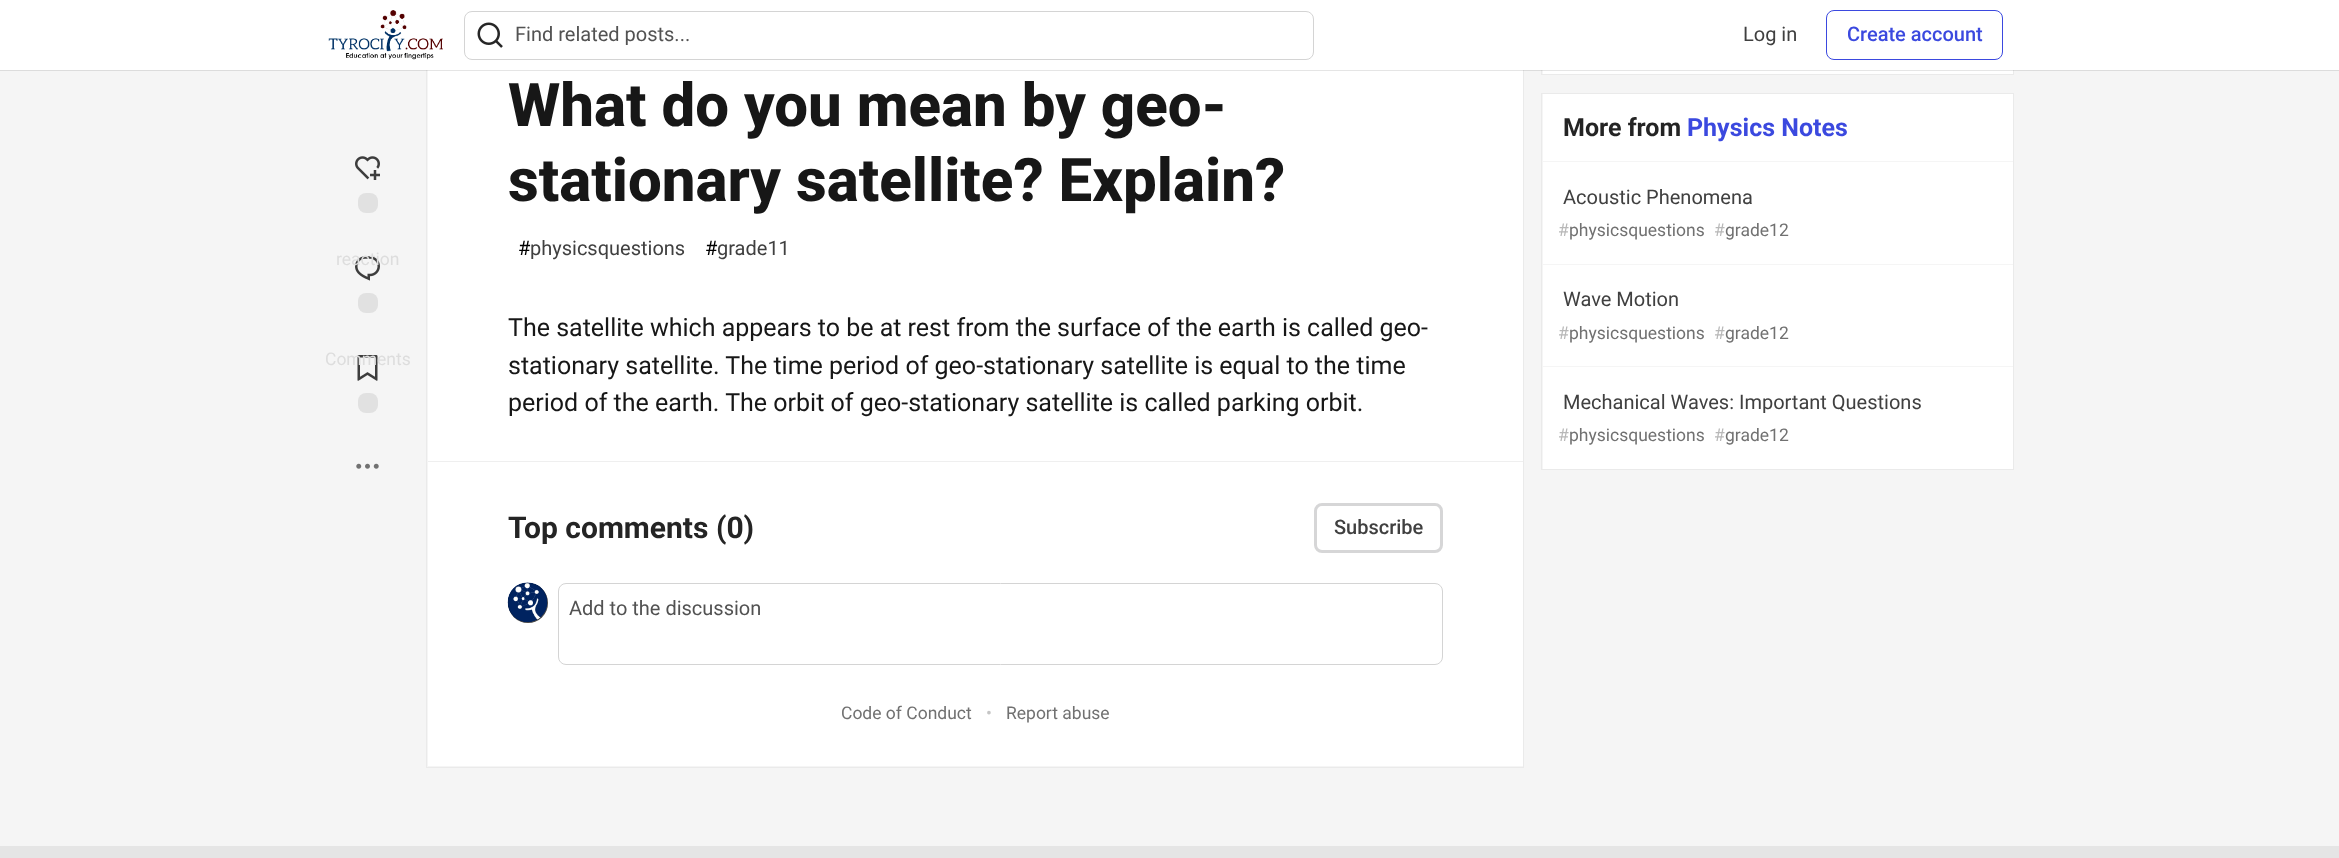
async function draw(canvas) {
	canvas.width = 2339;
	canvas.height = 858;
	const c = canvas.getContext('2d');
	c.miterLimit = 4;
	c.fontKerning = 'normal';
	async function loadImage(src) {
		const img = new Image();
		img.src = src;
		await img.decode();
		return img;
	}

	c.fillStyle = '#f5f5f5';
	c.fillRect(0, 0, 2339, 858);
	c.strokeStyle = '#eaeaea';
	c.strokeRect(426.5, -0.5, 1097, 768);
	c.fillStyle = '#fff';
	c.fillRect(428, 70, 1095, 696);
	c.strokeRect(1541.5, -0.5, 472, 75);
	c.fillRect(1543, 70, 470, 4);
	c.fillStyle = '#0000001a';
	c.filter = 'blur(0.5px)';
	c.beginPath();
	c.rect(0, 1, 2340, 70);
	c.fill();
	c.filter = 'none';
	c.fillStyle = '#fff';
	c.fillRect(0, 0, 2339, 70);
	c.drawImage(await loadImage('img1.png'), 328, 10, 115, 50);
	c.beginPath();
	c.roundRect(464.5, 11.5, 849, 48, 7.5);
	c.strokeStyle = '#d4d4d4';
	c.stroke();
	c.drawImage(await loadImage('img2.png'), 477, 22, 26, 26);
	c.font = '20px Roboto';
	c.fillStyle = '#525252';
	c.fillText('Find related posts...', 515, 41);
	c.fillStyle = '#404040';
	c.fillText('Log in', 1743, 41);
	c.beginPath();
	c.roundRect(1826.5, 10.5, 176, 49, 7.5);
	c.strokeStyle = '#3b49df';
	c.stroke();
	c.font = '500 20px Roboto';
	c.fillStyle = '#3b49df';
	c.fillText('Create account', 1847, 41);
	c.drawImage(await loadImage('img3.png'), 355, 156, 25, 24);
	c.fillStyle = '#e1e1e1';
	c.beginPath();
	c.roundRect(358, 193, 20, 20, 8);
	c.fill();
	c.drawImage(await loadImage('img4.png'), 355, 256, 25, 25);
	c.font = '17.5px Roboto';
	c.fillStyle = '#ddd';
	c.fillText('reaction', 336, 265);
	c.fillStyle = '#e1e1e1';
	c.beginPath();
	c.roundRect(358, 293, 20, 20, 8);
	c.fill();
	c.drawImage(await loadImage('img5.png'), 357, 355, 21, 26);
	c.fillStyle = '#ddd';
	c.fillText('Comments', 325, 365);
	c.fillStyle = '#e1e1e1';
	c.beginPath();
	c.roundRect(358, 393, 20, 20, 8);
	c.fill();
	c.drawImage(await loadImage('img6.png'), 356, 463, 23, 6);
	c.font = '800 60px Roboto';
	c.fillStyle = '#171717';
	c.fillText('What do you mean by geo-', 508, 126);
	c.fillText('stationary satellite? Explain?', 508, 201);
	c.font = '20px Roboto';
	c.fillStyle = '#000';
	c.fillText('#', 518, 255);
	c.fillStyle = '#404040';
	c.fillText('physicsquestions', 530, 255);
	c.fillStyle = '#000';
	c.fillText('#', 705, 255);
	c.fillStyle = '#404040';
	c.fillText('grade11', 717, 255);
	c.font = '25px Roboto';
	c.fillStyle = '#171717';
	for (const [text, x, y] of [
		['The satellite which appears to be at rest from the surface of the earth is called geo-', 508, 336],
		['stationary satellite. The time period of geo-stationary satellite is equal to the time', 508, 374],
		['period of the earth. The orbit of geo-stationary satellite is called parking orbit.', 508, 411],
	]) {
		c.fillText(text, x, y);
	}
	c.fillStyle = '#efefef';
	c.fillRect(428, 461, 1095, 1);
	c.font = 'bold 30px Roboto';
	c.fillStyle = '#242424';
	c.fillText('Top comments (0)', 508, 538);
	c.beginPath();
	c.roundRect(1315.5, 504.5, 126, 47, 6.5);
	c.strokeStyle = '#d6d6d7';
	c.lineWidth = 3;
	c.stroke();
	c.font = '500 20px Roboto';
	c.fillStyle = '#404040';
	c.fillText('Subscribe', 1334, 534);
	c.fillStyle = '#525252';
	c.beginPath();
	c.arc(528, 603, 20, 0, 2 * Math.PI);
	c.fill();
	c.drawImage(await loadImage('img7.png'), 507, 582, 41, 40);
	c.beginPath();
	c.arc(528, 603, 19.5, 0, 2 * Math.PI);
	c.strokeStyle = '#17171726';
	c.lineWidth = 1;
	c.stroke();
	c.beginPath();
	c.roundRect(558.5, 583.5, 884, 81, 7.5);
	c.strokeStyle = '#d4d4d4';
	c.stroke();
	c.font = '20px Roboto';
	c.fillText('Add to the discussion', 569, 615);
	c.font = '17.5px Roboto';
	c.fillStyle = '#717171';
	c.fillText('Code of Conduct', 841, 719);
	c.fillStyle = '#c5c5c5';
	c.fillText('•', 986, 719);
	c.fillStyle = '#717171';
	c.fillText('Report abuse', 1006, 719);
	c.strokeStyle = '#eaeaea';
	c.strokeRect(1541.5, 93.5, 472, 376);
	c.fillStyle = '#fff';
	c.fillRect(1543, 94, 470, 375);
	c.fillStyle = '#f5f5f5';
	c.fillRect(1543, 161, 470, 1);
	c.font = 'bold 25px Roboto';
	c.fillStyle = '#242424';
	c.fillText('More from', 1563, 136);
	c.fillStyle = '#3b49df';
	c.fillText('Physics Notes', 1687, 136);
	c.fillStyle = '#f5f5f5';
	c.fillRect(1543, 264, 470, 1);
	c.font = '20px Roboto';
	c.fillStyle = '#404040';
	c.fillText('Acoustic Phenomena', 1563, 204);
	c.font = '17.5px Roboto';
	c.fillStyle = '#b8b8b8';
	c.fillText('#', 1558, 236);
	c.fillStyle = '#717171';
	c.fillText('physicsquestions', 1569, 236);
	c.fillStyle = '#b8b8b8';
	c.fillText('#', 1714, 236);
	c.fillStyle = '#717171';
	c.fillText('grade12', 1725, 236);
	c.fillStyle = '#f5f5f5';
	c.fillRect(1543, 366, 470, 1);
	c.font = '20px Roboto';
	c.fillStyle = '#404040';
	c.fillText('Wave Motion', 1563, 306);
	c.font = '17.5px Roboto';
	c.fillStyle = '#b8b8b8';
	c.fillText('#', 1558, 339);
	c.fillStyle = '#717171';
	c.fillText('physicsquestions', 1569, 339);
	c.fillStyle = '#b8b8b8';
	c.fillText('#', 1714, 339);
	c.fillStyle = '#717171';
	c.fillText('grade12', 1725, 339);
	c.font = '20px Roboto';
	c.fillStyle = '#404040';
	c.fillText('Mechanical Waves: Important Questions', 1563, 409);
	c.font = '17.5px Roboto';
	c.fillStyle = '#b8b8b8';
	c.fillText('#', 1558, 441);
	c.fillStyle = '#717171';
	c.fillText('physicsquestions', 1569, 441);
	c.fillStyle = '#b8b8b8';
	c.fillText('#', 1714, 441);
	c.fillStyle = '#717171';
	c.fillText('grade12', 1725, 441);
	c.fillStyle = '#e5e5e5';
	c.fillRect(0, 846, 2339, 12);
}

draw(document.querySelector('canvas'));
